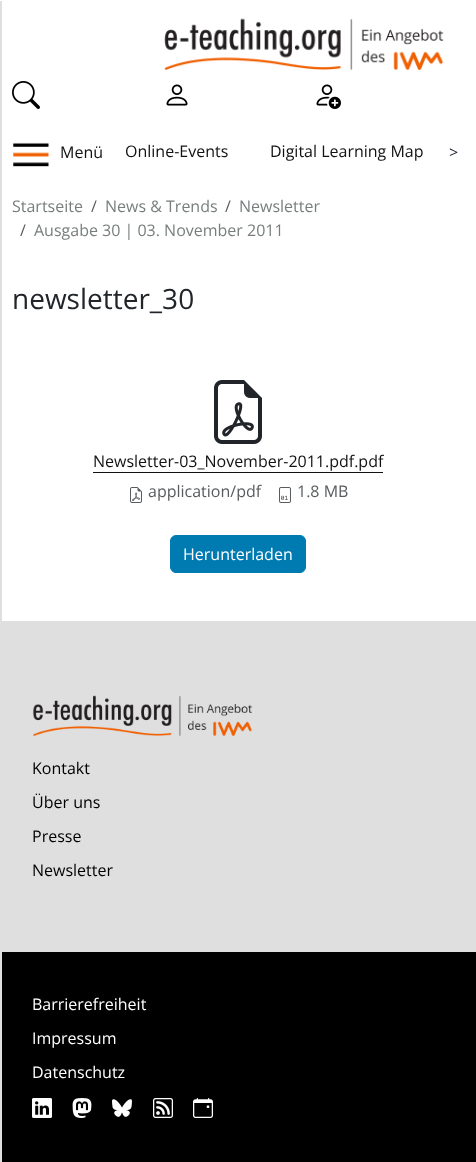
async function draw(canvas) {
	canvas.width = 476;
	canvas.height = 1162;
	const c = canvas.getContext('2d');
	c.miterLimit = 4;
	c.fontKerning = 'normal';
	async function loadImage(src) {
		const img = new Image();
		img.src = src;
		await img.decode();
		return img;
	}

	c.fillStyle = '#fff';
	c.fillRect(0, 0, 476, 1162);
	c.fillStyle = '#dfdfdf';
	c.fillRect(1, 621, 475, 331);
	c.fillStyle = '#000';
	c.fillRect(1, 952, 475, 210);
	c.fillStyle = '#dfdfdf';
	c.filter = 'blur(0.5px)';
	c.beginPath();
	c.rect(-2, 1, 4, 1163);
	c.fill();
	c.filter = 'none';
	c.drawImage(await loadImage('img1.png'), 164, 18, 280, 52);
	c.drawImage(await loadImage('img2.png'), 12, 81, 28, 28);
	c.drawImage(await loadImage('img3.png'), 166, 84, 22, 22);
	c.drawImage(await loadImage('img4.png'), 316, 84, 25, 25);
	c.drawImage(await loadImage('img5.png'), 13, 142, 37, 25);
	c.font = '16px Open Sans';
	c.fillStyle = '#111213';
	for (const [text, x, y] of [
		['Menü', 60, 158],
		['Online-Events', 125, 157],
		['Digital Learning Map', 270, 157],
	]) {
		c.fillText(text, x, y);
	}
	c.fillStyle = '#29293a';
	c.fillText('>', 449, 158);
	c.fillStyle = '#787e7e';
	c.fillText('Startseite', 12, 212);
	c.fillStyle = '#595c5f';
	c.fillText('/', 91, 212);
	c.fillStyle = '#787e7e';
	c.fillText('News & Trends', 105, 212);
	c.fillStyle = '#595c5f';
	c.fillText('/', 225, 212);
	c.fillStyle = '#787e7e';
	c.fillText('Newsletter', 239, 212);
	c.fillStyle = '#595c5f';
	c.fillText('/', 20, 236);
	c.fillStyle = '#787e7e';
	c.fillText('Ausgabe 30 | 03. November 2011', 34, 236);
	c.font = '28px Open Sans';
	c.fillStyle = '#212529';
	c.fillText('newsletter_30', 12, 309);
	c.drawImage(await loadImage('img6.png'), 214, 380, 48, 64);
	c.font = '16px Open Sans';
	c.fillStyle = '#111213';
	c.fillText('Newsletter-03_November-2011.pdf.pdf', 93, 467);
	c.fillRect(93, 472, 290, 1);
	c.drawImage(await loadImage('img7.png'), 130, 487, 12, 16);
	c.fillStyle = '#595c5f';
	c.fillText('application/pdf', 148, 497);
	c.drawImage(await loadImage('img8.png'), 279, 487, 12, 16);
	c.fillText('1.8 MB', 297, 497);
	c.fillStyle = '#007bb1';
	c.beginPath();
	c.roundRect(170.5, 535.5, 135, 37, 5.5);
	c.fill();
	c.strokeStyle = '#007bb1';
	c.stroke();
	c.fillStyle = '#fff';
	c.fillText('Herunterladen', 183, 560);
	c.drawImage(await loadImage('img9.png'), 32, 695, 220, 41);
	c.fillStyle = '#000';
	for (const [text, x, y] of [
		['Kontakt', 32, 774],
		['Über uns', 32, 808],
		['Presse', 32, 842],
		['Newsletter', 32, 876],
	]) {
		c.fillText(text, x, y);
	}
	c.fillStyle = '#fff';
	for (const [text, x, y] of [
		['Barrierefreiheit', 32, 1010],
		['Impressum', 32, 1044],
		['Datenschutz', 32, 1078],
	]) {
		c.fillText(text, x, y);
	}
	c.drawImage(await loadImage('img10.png'), 32, 1098, 20, 20);
	c.drawImage(await loadImage('img11.png'), 72, 1098, 20, 20);
	c.drawImage(await loadImage('img12.png'), 112, 1099, 20, 18);
	c.drawImage(await loadImage('img13.png'), 153, 1098, 20, 20);
	c.drawImage(await loadImage('img14.png'), 193, 1098, 20, 20);
}

draw(document.querySelector('canvas'));
